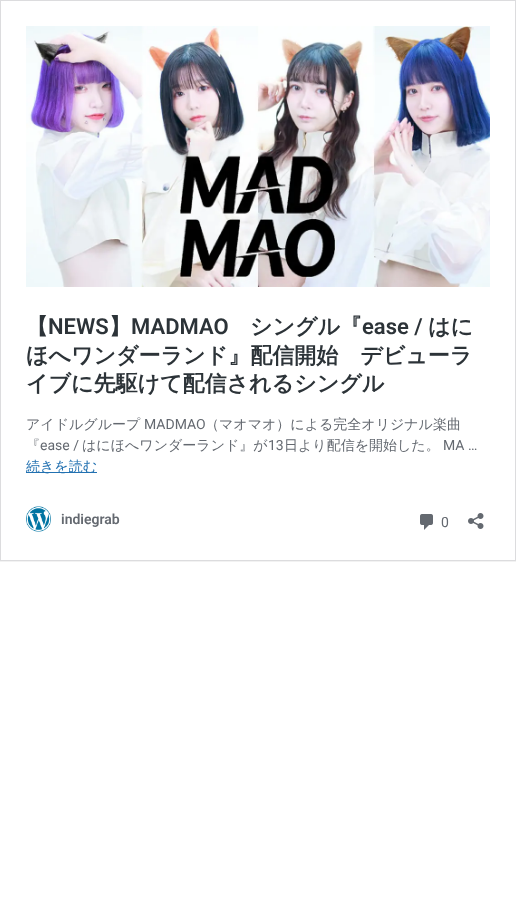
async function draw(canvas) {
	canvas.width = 516;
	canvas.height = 911;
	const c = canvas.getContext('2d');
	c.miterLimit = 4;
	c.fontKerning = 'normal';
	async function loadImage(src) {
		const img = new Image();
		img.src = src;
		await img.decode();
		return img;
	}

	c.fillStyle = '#fff';
	c.fillRect(0, 0, 516, 911);
	c.save();
	c.beginPath();
	c.rect(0, 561, 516, 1);
	c.clip();
	c.fillStyle = '#0000000d';
	c.filter = 'blur(0.5px)';
	c.beginPath();
	c.rect(0, 1, 516, 561);
	c.fill();
	c.filter = 'none';
	c.restore();
	c.strokeStyle = '#dcdcde';
	c.strokeRect(0.5, 0.5, 515, 560);
	c.drawImage(await loadImage('img1.png'), 26, 26, 464, 261);
	c.font = 'bold 22px WenQuanYi Zen Hei';
	c.fillStyle = '#2c3338';
	c.fillText('【', 26, 334);
	c.font = '600 22px Roboto';
	c.fillText('NEWS', 48, 334);
	c.font = 'bold 22px WenQuanYi Zen Hei';
	c.fillText('】', 109, 334);
	c.font = '600 22px Roboto';
	c.fillText('MADMAO', 131, 334);
	c.font = 'bold 22px WenQuanYi Zen Hei';
	c.fillText('シングル『', 250, 334);
	c.font = '600 22px Roboto';
	c.fillText('ease /', 362, 334);
	c.font = 'bold 22px WenQuanYi Zen Hei';
	for (const [text, x, y] of [
		['はに', 428, 334],
		['ほへワンダーランド』配信開始　デビューラ', 26, 363],
		['イブに先駆けて配信されるシングル', 26, 391],
	]) {
		c.fillText(text, x, y);
	}
	c.font = '500 14px WenQuanYi Zen Hei';
	c.fillStyle = '#646970';
	c.fillText('アイドルグループ', 26, 429);
	c.font = '14px Roboto';
	c.fillText('MADMAO', 144, 429);
	c.font = '500 14px WenQuanYi Zen Hei';
	c.fillText('（マオマオ）による完全オリジナル楽曲', 205, 429);
	c.fillText('『', 26, 450);
	c.font = '14px Roboto';
	c.fillText('ease /', 40, 450);
	c.font = '500 14px WenQuanYi Zen Hei';
	c.fillText('はにほへワンダーランド』が', 82, 450);
	c.font = '14px Roboto';
	c.fillText('13', 268, 450);
	c.font = '500 14px WenQuanYi Zen Hei';
	c.fillText('日より配信を開始した。', 284, 450);
	c.font = '14px Roboto';
	c.fillText('MA …', 443, 450);
	c.fillStyle = '#2271b1';
	c.fillRect(26, 472, 71, 1);
	c.font = '500 14px WenQuanYi Zen Hei';
	c.fillText('続きを読む', 26, 471);
	c.drawImage(await loadImage('img2.png'), 26, 506, 25, 26);
	c.font = '600 14px Roboto';
	c.fillStyle = '#646970';
	c.fillText('indiegrab', 61, 524);
	c.drawImage(await loadImage('img3.png'), 420, 514, 13, 16);
	c.font = '14px Roboto';
	c.fillText('0', 441, 527);
	c.drawImage(await loadImage('img4.png'), 468, 513, 16, 16);
}

draw(document.querySelector('canvas'));
